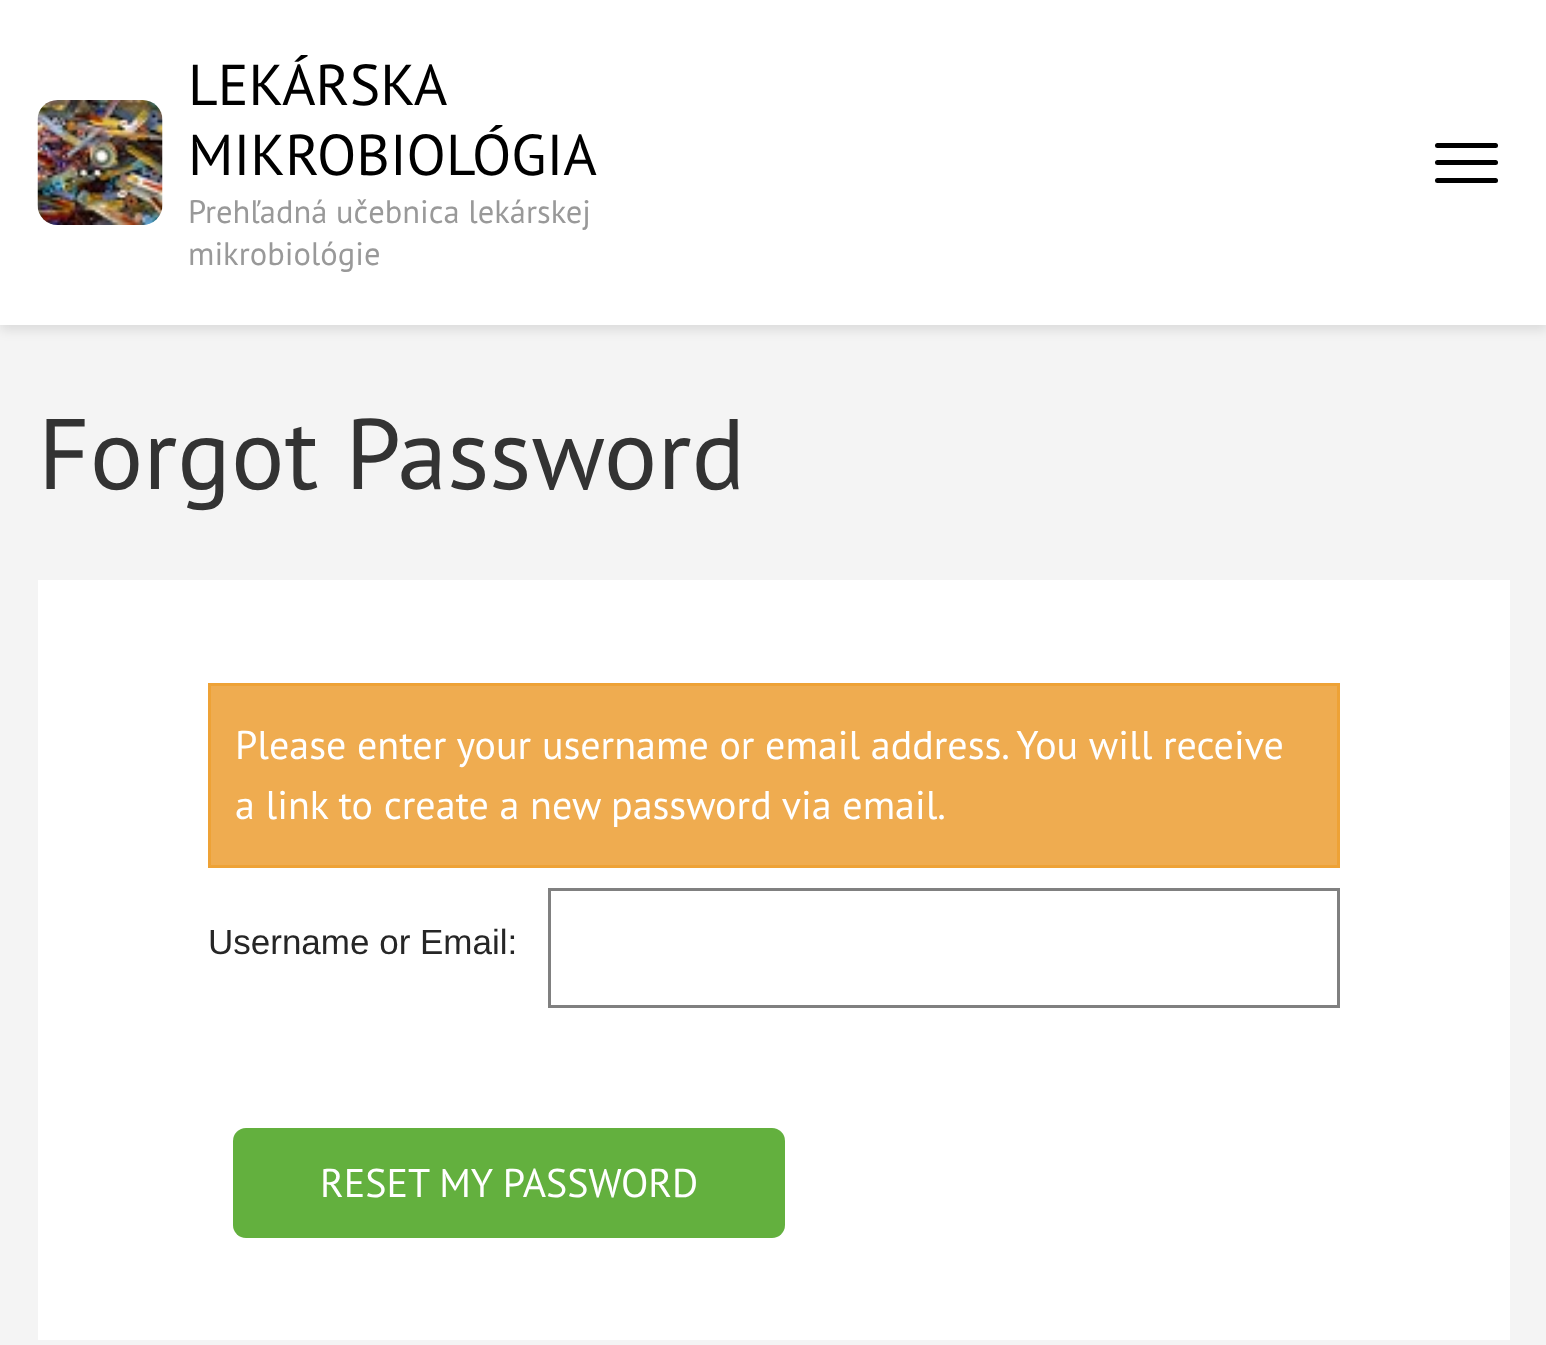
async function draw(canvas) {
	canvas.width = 1546;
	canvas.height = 1345;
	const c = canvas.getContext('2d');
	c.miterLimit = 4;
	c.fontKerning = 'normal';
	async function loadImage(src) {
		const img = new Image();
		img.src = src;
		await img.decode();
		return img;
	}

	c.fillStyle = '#f4f4f4';
	c.fillRect(0, 0, 1546, 1345);
	c.fillStyle = '#0000001a';
	c.filter = 'blur(6px)';
	c.beginPath();
	c.rect(0, 5, 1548, 325);
	c.fill();
	c.filter = 'none';
	c.fillStyle = '#fff';
	c.fillRect(0, 0, 1546, 325);
	c.drawImage(await loadImage('img1.png'), 37, 100, 126, 125);
	c.font = '57.5px PT Sans';
	c.fillStyle = '#000';
	c.fillText('LEKÁRSKA', 188, 105);
	c.fillText('MIKROBIOLÓGIA', 188, 175);
	c.font = '32.5px PT Sans';
	c.fillStyle = '#999';
	c.fillText('Prehľadná učebnica lekárskej', 188, 223);
	c.fillText('mikrobiológie', 188, 265);
	c.fillStyle = '#000';
	c.beginPath();
	c.roundRect(1435, 143, 63, 5, 2.5);
	c.fill();
	c.beginPath();
	c.roundRect(1435, 160, 63, 5, 2.5);
	c.fill();
	c.beginPath();
	c.roundRect(1435, 178, 63, 5, 2.5);
	c.fill();
	c.font = '100px PT Sans';
	c.fillStyle = '#333';
	c.fillText('Forgot Password', 38, 489);
	c.fillStyle = '#fff';
	c.fillRect(38, 580, 1472, 760);
	c.fillStyle = '#efac50';
	c.beginPath();
	c.rect(209.5, 684.5, 1129, 182);
	c.fill();
	c.strokeStyle = '#eea236';
	c.lineWidth = 3;
	c.stroke();
	c.font = '40px PT Sans';
	c.fillStyle = '#fff';
	c.fillText('Please enter your username or email address. You will receive', 235, 759);
	c.fillText('a link to create a new password via email.', 235, 819);
	c.font = '35px Liberation Sans';
	c.fillStyle = '#262626';
	c.fillText('Username or Email:', 208, 954);
	c.strokeStyle = '#808080';
	c.strokeRect(549.5, 889.5, 789, 117);
	c.fillStyle = '#63b03e';
	c.beginPath();
	c.roundRect(233, 1128, 552, 110, 13);
	c.fill();
	c.font = '40px PT Sans';
	c.fillStyle = '#fff';
	c.fillText('RESET MY PASSWORD', 320, 1197);
}

draw(document.querySelector('canvas'));
